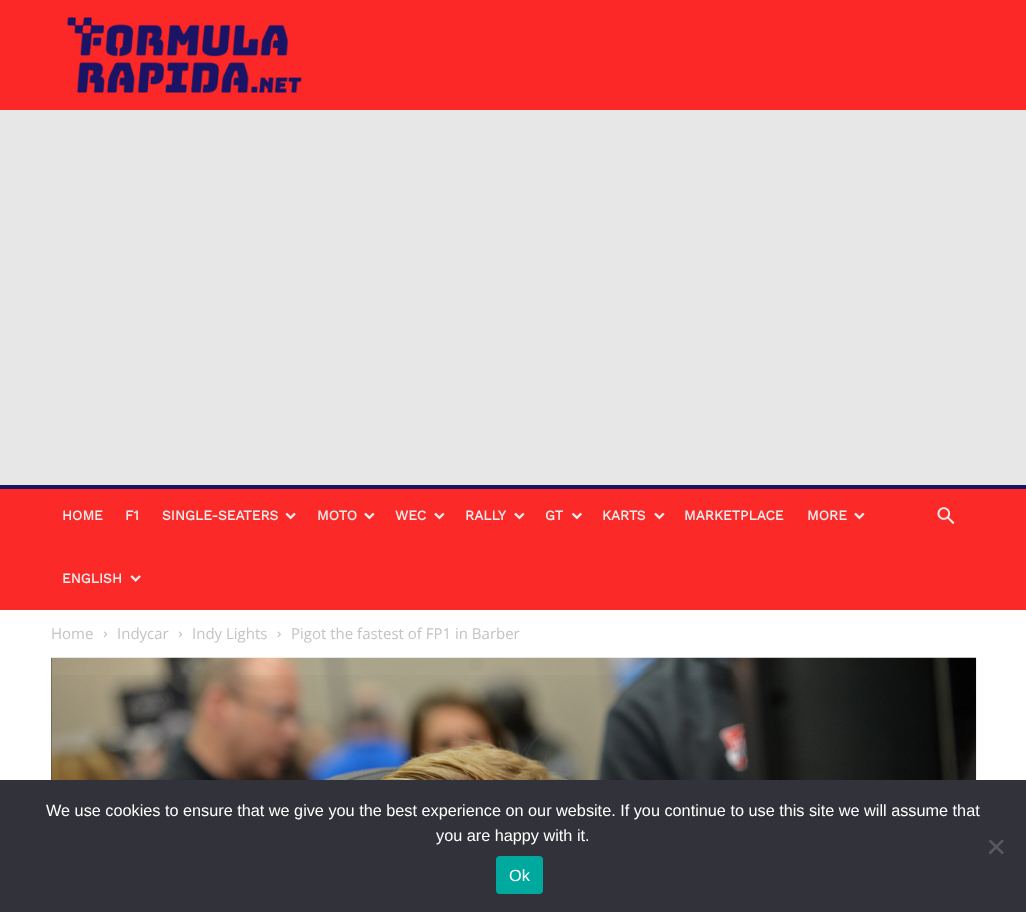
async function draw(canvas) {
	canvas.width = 1026;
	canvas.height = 912;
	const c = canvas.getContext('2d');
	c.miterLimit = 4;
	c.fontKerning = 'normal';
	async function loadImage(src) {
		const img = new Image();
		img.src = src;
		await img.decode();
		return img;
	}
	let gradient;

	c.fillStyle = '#e7e7e7';
	c.fillRect(0, 0, 1026, 912);
	c.fillStyle = '#fc2828';
	c.fillRect(0, 0, 1026, 110);
	c.drawImage(await loadImage('img1.png'), 67, 17, 235, 76);
	c.fillStyle = '#fc2929';
	c.fillRect(0, 489, 1026, 121);
	c.fillStyle = '#1b1464';
	c.fillRect(0, 485, 1026, 4);
	c.font = 'bold 13.75px Work Sans';
	c.fillStyle = '#ededed';
	for (const [text, x, y] of [
		['HOME', 62, 520],
		['F1', 125, 520],
		['SINGLE-SEATERS', 162, 520],
	]) {
		c.fillText(text, x, y);
	}
	c.drawImage(await loadImage('img2.png'), 285, 512, 11, 8);
	c.fillText('MOTO', 317, 520);
	c.drawImage(await loadImage('img3.png'), 364, 512, 11, 8);
	c.fillText('WEC', 395, 520);
	c.drawImage(await loadImage('img3.png'), 434, 512, 11, 8);
	c.fillText('RALLY', 465, 520);
	c.drawImage(await loadImage('img3.png'), 514, 512, 11, 8);
	c.fillText('GT', 545, 520);
	c.drawImage(await loadImage('img4.png'), 571, 512, 11, 8);
	c.fillText('KARTS', 602, 520);
	c.drawImage(await loadImage('img3.png'), 654, 512, 11, 8);
	c.fillText('MARKETPLACE', 684, 520);
	c.fillText('MORE', 807, 520);
	c.drawImage(await loadImage('img3.png'), 854, 512, 11, 8);
	c.fillText('ENGLISH', 62, 583);
	c.drawImage(await loadImage('img5.png'), 130, 575, 11, 7);
	c.drawImage(await loadImage('img6.png'), 937, 507, 18, 17);
	c.fillStyle = '#fff';
	c.fillRect(0, 610, 1026, 170);
	c.font = '15px Open Sans';
	c.fillStyle = '#c3c3c3';
	c.fillText('Home', 51, 639);
	c.drawImage(await loadImage('img7.png'), 103, 631, 4, 7);
	c.fillText('Indycar', 117, 639);
	c.drawImage(await loadImage('img7.png'), 178, 631, 4, 7);
	c.fillText('Indy Lights', 192, 639);
	c.drawImage(await loadImage('img8.png'), 277, 631, 4, 7);
	c.fillText('Pigot the fastest of FP1 in Barber', 291, 639);
	c.fillStyle = '#444';
	c.fillRect(51, 658, 1, 122);
	c.drawImage(await loadImage('img9.png'), 51, 657, 926, 123);
	gradient = c.createLinearGradient(514, 658, 514, 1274);
	gradient.addColorStop(0, '#00000000');
	gradient.addColorStop(1, '#000000cc');
	c.fillStyle = gradient;
	c.fillRect(51, 675, 925, 105);
	c.fillStyle = '#32323a';
	c.fillRect(0, 780, 1026, 132);
	c.font = '16.25px Liberation Sans';
	c.fillStyle = '#fff';
	c.fillText('We use cookies to ensure that we give you the best experience on our website. If you continue to use this site we will assume that', 46, 816);
	c.fillText('you are happy with it.', 436, 841);
	c.fillStyle = '#59595d';
	c.beginPath();
	c.moveTo(1002, 839.5);
	c.lineTo(1004, 841);
	c.lineTo(990.5, 854.5);
	c.lineTo(988.5, 852.5);
	c.closePath();
	c.fill();
	c.beginPath();
	c.moveTo(988.5, 841);
	c.lineTo(990.5, 839.5);
	c.lineTo(1004, 852.5);
	c.lineTo(1002, 854.5);
	c.closePath();
	c.fill();
	c.fillStyle = '#00a99d';
	c.beginPath();
	c.roundRect(496, 856, 47, 38, 4);
	c.fill();
	c.fillStyle = '#fff';
	c.fillText('Ok', 509, 881);
}

draw(document.querySelector('canvas'));
